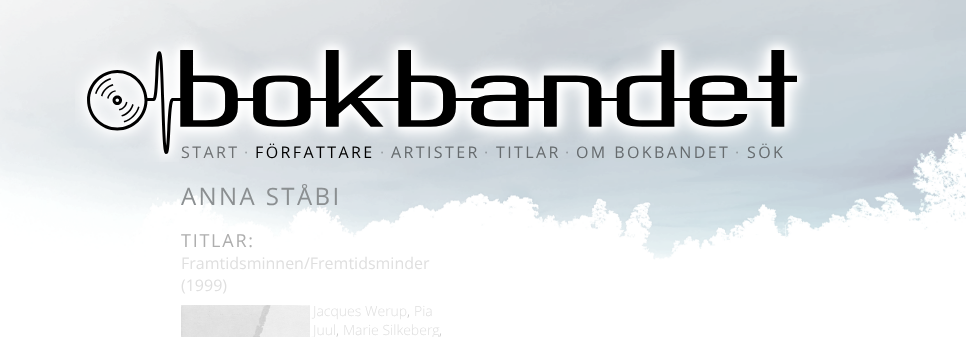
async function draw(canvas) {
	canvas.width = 966;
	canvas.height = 337;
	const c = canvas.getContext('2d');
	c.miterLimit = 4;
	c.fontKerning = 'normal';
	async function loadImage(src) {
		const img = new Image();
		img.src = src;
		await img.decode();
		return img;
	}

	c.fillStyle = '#fff';
	c.fillRect(0, 0, 966, 337);
	c.drawImage(await loadImage('img1.png'), 0, 0, 966, 260);
	c.drawImage(await loadImage('img2.png'), 75, 35, 735, 127);
	c.letterSpacing = '2.4px';
	c.font = '16px Open Sans';
	c.fillStyle = '#6e7173';
	c.fillText('START', 181, 158);
	c.fillStyle = '#a3a8ab';
	c.fillText('·', 244, 158);
	c.fillStyle = '#000';
	c.fillText('FÖRFATTARE', 255, 158);
	c.fillStyle = '#9ca2a6';
	c.fillText('·', 380, 158);
	c.fillStyle = '#666b6e';
	c.fillText('ARTISTER', 391, 158);
	c.fillStyle = '#969da2';
	c.fillText('·', 484, 158);
	c.fillStyle = '#666b6e';
	c.fillText('TITLAR', 496, 158);
	c.fillStyle = '#969da2';
	c.fillText('·', 565, 158);
	c.fillStyle = '#666b6e';
	c.fillText('OM BOKBANDET', 576, 158);
	c.fillStyle = '#969da2';
	c.fillText('·', 735, 158);
	c.fillStyle = '#666b6e';
	c.fillText('SÖK', 747, 158);
	c.font = '24px Open Sans';
	c.fillStyle = '#8b8f91';
	c.fillText('ANNA STÅBI', 181, 205);
	c.letterSpacing = '1.75px';
	c.font = '18px Open Sans';
	c.fillStyle = '#aeaeae';
	c.fillText('TITLAR:', 181, 247);
	c.letterSpacing = '0px';
	c.font = '16px Open Sans';
	c.fillStyle = '#dfdfdf';
	c.fillText('Framtidsminnen/Fremtidsminder', 181, 269);
	c.fillText('(1999)', 181, 291);
	c.drawImage(await loadImage('img3.png'), 181, 305, 129, 32);
	c.font = '300 14px Open Sans';
	c.fillText('Jacques Werup', 313, 316);
	c.fillStyle = '#c0c0c0';
	c.fillText(',', 407, 316);
	c.fillStyle = '#dfdfdf';
	c.fillText('Pia', 414, 316);
	c.fillText('Juul', 313, 335);
	c.fillStyle = '#c0c0c0';
	c.fillText(',', 336, 335);
	c.fillStyle = '#dfdfdf';
	c.fillText('Marie Silkeberg', 343, 335);
	c.fillStyle = '#c0c0c0';
	c.fillText(',', 439, 335);
}

draw(document.querySelector('canvas'));
